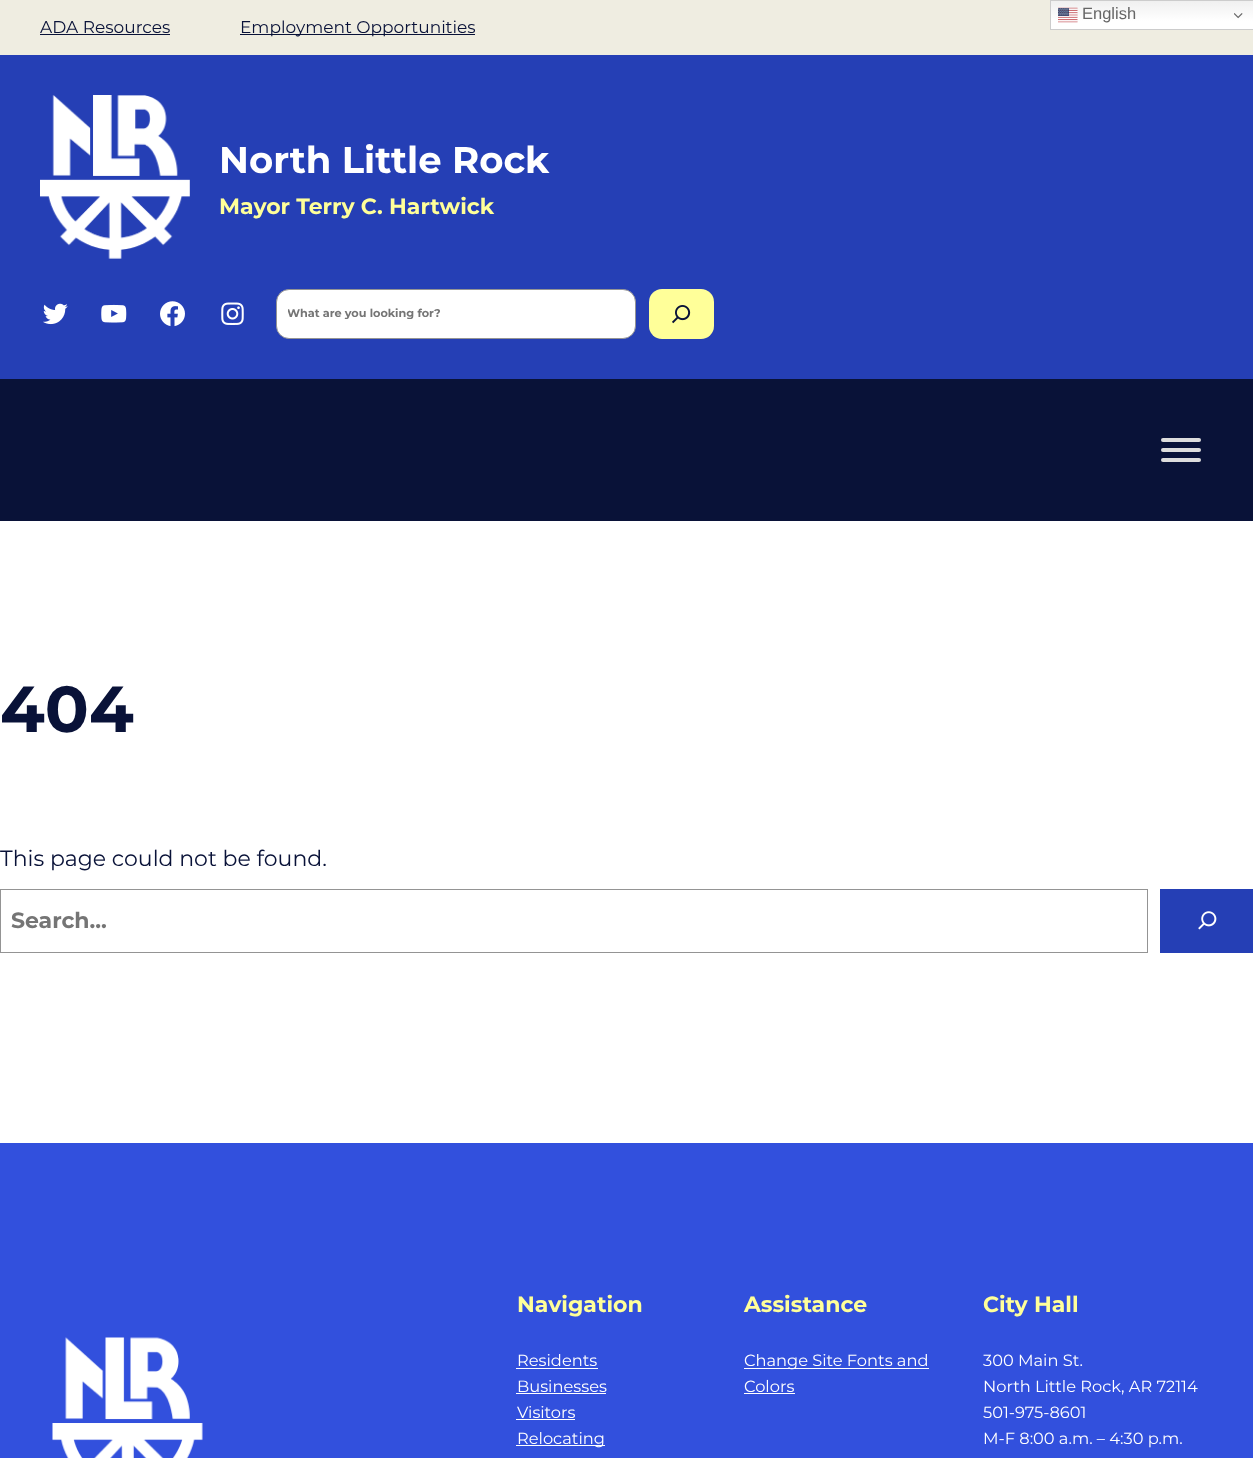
async function draw(canvas) {
	canvas.width = 1253;
	canvas.height = 1458;
	const c = canvas.getContext('2d');
	c.miterLimit = 4;
	c.fontKerning = 'normal';
	async function loadImage(src) {
		const img = new Image();
		img.src = src;
		await img.decode();
		return img;
	}
	let gradient;

	c.fillStyle = '#fff';
	c.fillRect(0, 0, 1253, 1458);
	c.fillStyle = '#efede1';
	c.fillRect(0, 0, 1253, 55);
	gradient = c.createLinearGradient(1152, 0, 1152, 30);
	gradient.addColorStop(0, '#efefef');
	gradient.addColorStop(0.7, '#fff');
	c.fillStyle = gradient;
	c.fillRect(1051, 1, 202, 28);
	c.strokeStyle = '#ccc';
	c.strokeRect(1050.5, 0.5, 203, 29);
	c.drawImage(await loadImage('img1.png'), 1058, 7, 20, 16);
	c.font = '16.5px Liberation Sans';
	c.fillStyle = '#666';
	c.fillText('English', 1082, 19);
	c.drawImage(await loadImage('img2.png'), 1234, 13, 9, 6);
	c.font = '17px Montserrat';
	c.fillStyle = '#091238';
	c.fillText('ADA Resources', 40, 33);
	c.fillRect(40, 34, 130, 1);
	c.fillRect(240, 34, 235, 1);
	c.fillText('Employment Opportunities', 240, 33);
	c.fillStyle = '#253fb5';
	c.fillRect(0, 55, 1253, 324);
	c.drawImage(await loadImage('img3.png'), 40, 95, 150, 164);
	c.font = 'bold 37px Montserrat';
	c.fillStyle = '#fff';
	c.fillText('North Little Rock', 219, 173);
	c.font = 'bold 22px Montserrat';
	c.fillStyle = '#ff9';
	c.fillText('Mayor Terry C. Hartwick', 219, 214);
	c.drawImage(await loadImage('img4.png'), 43, 303, 25, 22);
	c.drawImage(await loadImage('img5.png'), 101, 304, 26, 19);
	c.drawImage(await loadImage('img6.png'), 160, 301, 25, 26);
	c.drawImage(await loadImage('img7.png'), 221, 302, 23, 23);
	c.fillStyle = '#fff';
	c.beginPath();
	c.roundRect(276.5, 289.5, 359, 49, 12.5);
	c.fill();
	c.strokeStyle = '#949494';
	c.stroke();
	c.save();
	c.beginPath();
	c.rect(288, 305, 325, 14);
	c.clip();
	c.font = 'bold 11.25px Montserrat';
	c.fillStyle = '#757575';
	c.fillText('What are you looking for?', 287, 317);
	c.restore();
	c.fillStyle = '#ff9';
	c.beginPath();
	c.roundRect(649, 289, 65, 50, 13);
	c.fill();
	c.drawImage(await loadImage('img8.png'), 672, 305, 19, 19);
	c.fillStyle = '#091238';
	c.fillRect(0, 379, 1253, 142);
	c.fillStyle = '#ddd';
	c.beginPath();
	c.roundRect(1161, 438, 40, 4, 2);
	c.fill();
	c.beginPath();
	c.roundRect(1161, 448, 40, 4, 2);
	c.fill();
	c.beginPath();
	c.roundRect(1161, 458, 40, 4, 2);
	c.fill();
	c.font = 'bold 65px Montserrat';
	c.fillStyle = '#091238';
	c.fillText('404', 0, 732);
	c.font = '22px Montserrat';
	c.fillText('This page could not be found.', 0, 866);
	c.strokeRect(0.5, 889.5, 1147, 63);
	c.font = 'bold 22px Montserrat';
	c.fillStyle = '#757575';
	c.fillText('Search...', 11, 928);
	c.fillStyle = '#253fb5';
	c.fillRect(1160, 889, 93, 64);
	c.drawImage(await loadImage('img9.png'), 1198, 911, 19, 19);
	c.fillStyle = '#3250dd';
	c.fillRect(0, 1143, 1253, 315);
	c.drawImage(await loadImage('img10.png'), 52, 1337, 151, 121);
	c.fillStyle = '#ff9';
	c.fillText('Navigation', 517, 1312);
	c.font = '16.25px Montserrat';
	c.fillStyle = '#fff';
	c.fillText('Residents', 517, 1366);
	c.fillRect(516, 1368, 82, 1);
	c.fillText('Businesses', 517, 1392);
	c.fillRect(516, 1393, 90, 1);
	c.fillText('Visitors', 517, 1418);
	c.fillRect(516, 1419, 59, 1);
	c.fillRect(516, 1445, 89, 1);
	c.fillText('Relocating', 517, 1444);
	c.font = 'bold 22px Montserrat';
	c.fillStyle = '#ff9';
	c.fillText('Assistance', 744, 1312);
	c.fillStyle = '#fff';
	c.fillRect(744, 1368, 185, 1);
	c.font = '16.25px Montserrat';
	c.fillText('Change Site Fonts and', 744, 1366);
	c.fillText('Colors', 744, 1392);
	c.fillRect(744, 1393, 51, 1);
	c.font = 'bold 22px Montserrat';
	c.fillStyle = '#ff9';
	c.fillText('City Hall', 983, 1312);
	c.font = '16.25px Montserrat';
	c.fillStyle = '#fff';
	for (const [text, x, y] of [
		['300 Main St.', 983, 1366],
		['North Little Rock, AR 72114', 983, 1392],
		['501-975-8601', 983, 1418],
		['M-F 8:00 a.m. – 4:30 p.m.', 983, 1444],
	]) {
		c.fillText(text, x, y);
	}
}

draw(document.querySelector('canvas'));
